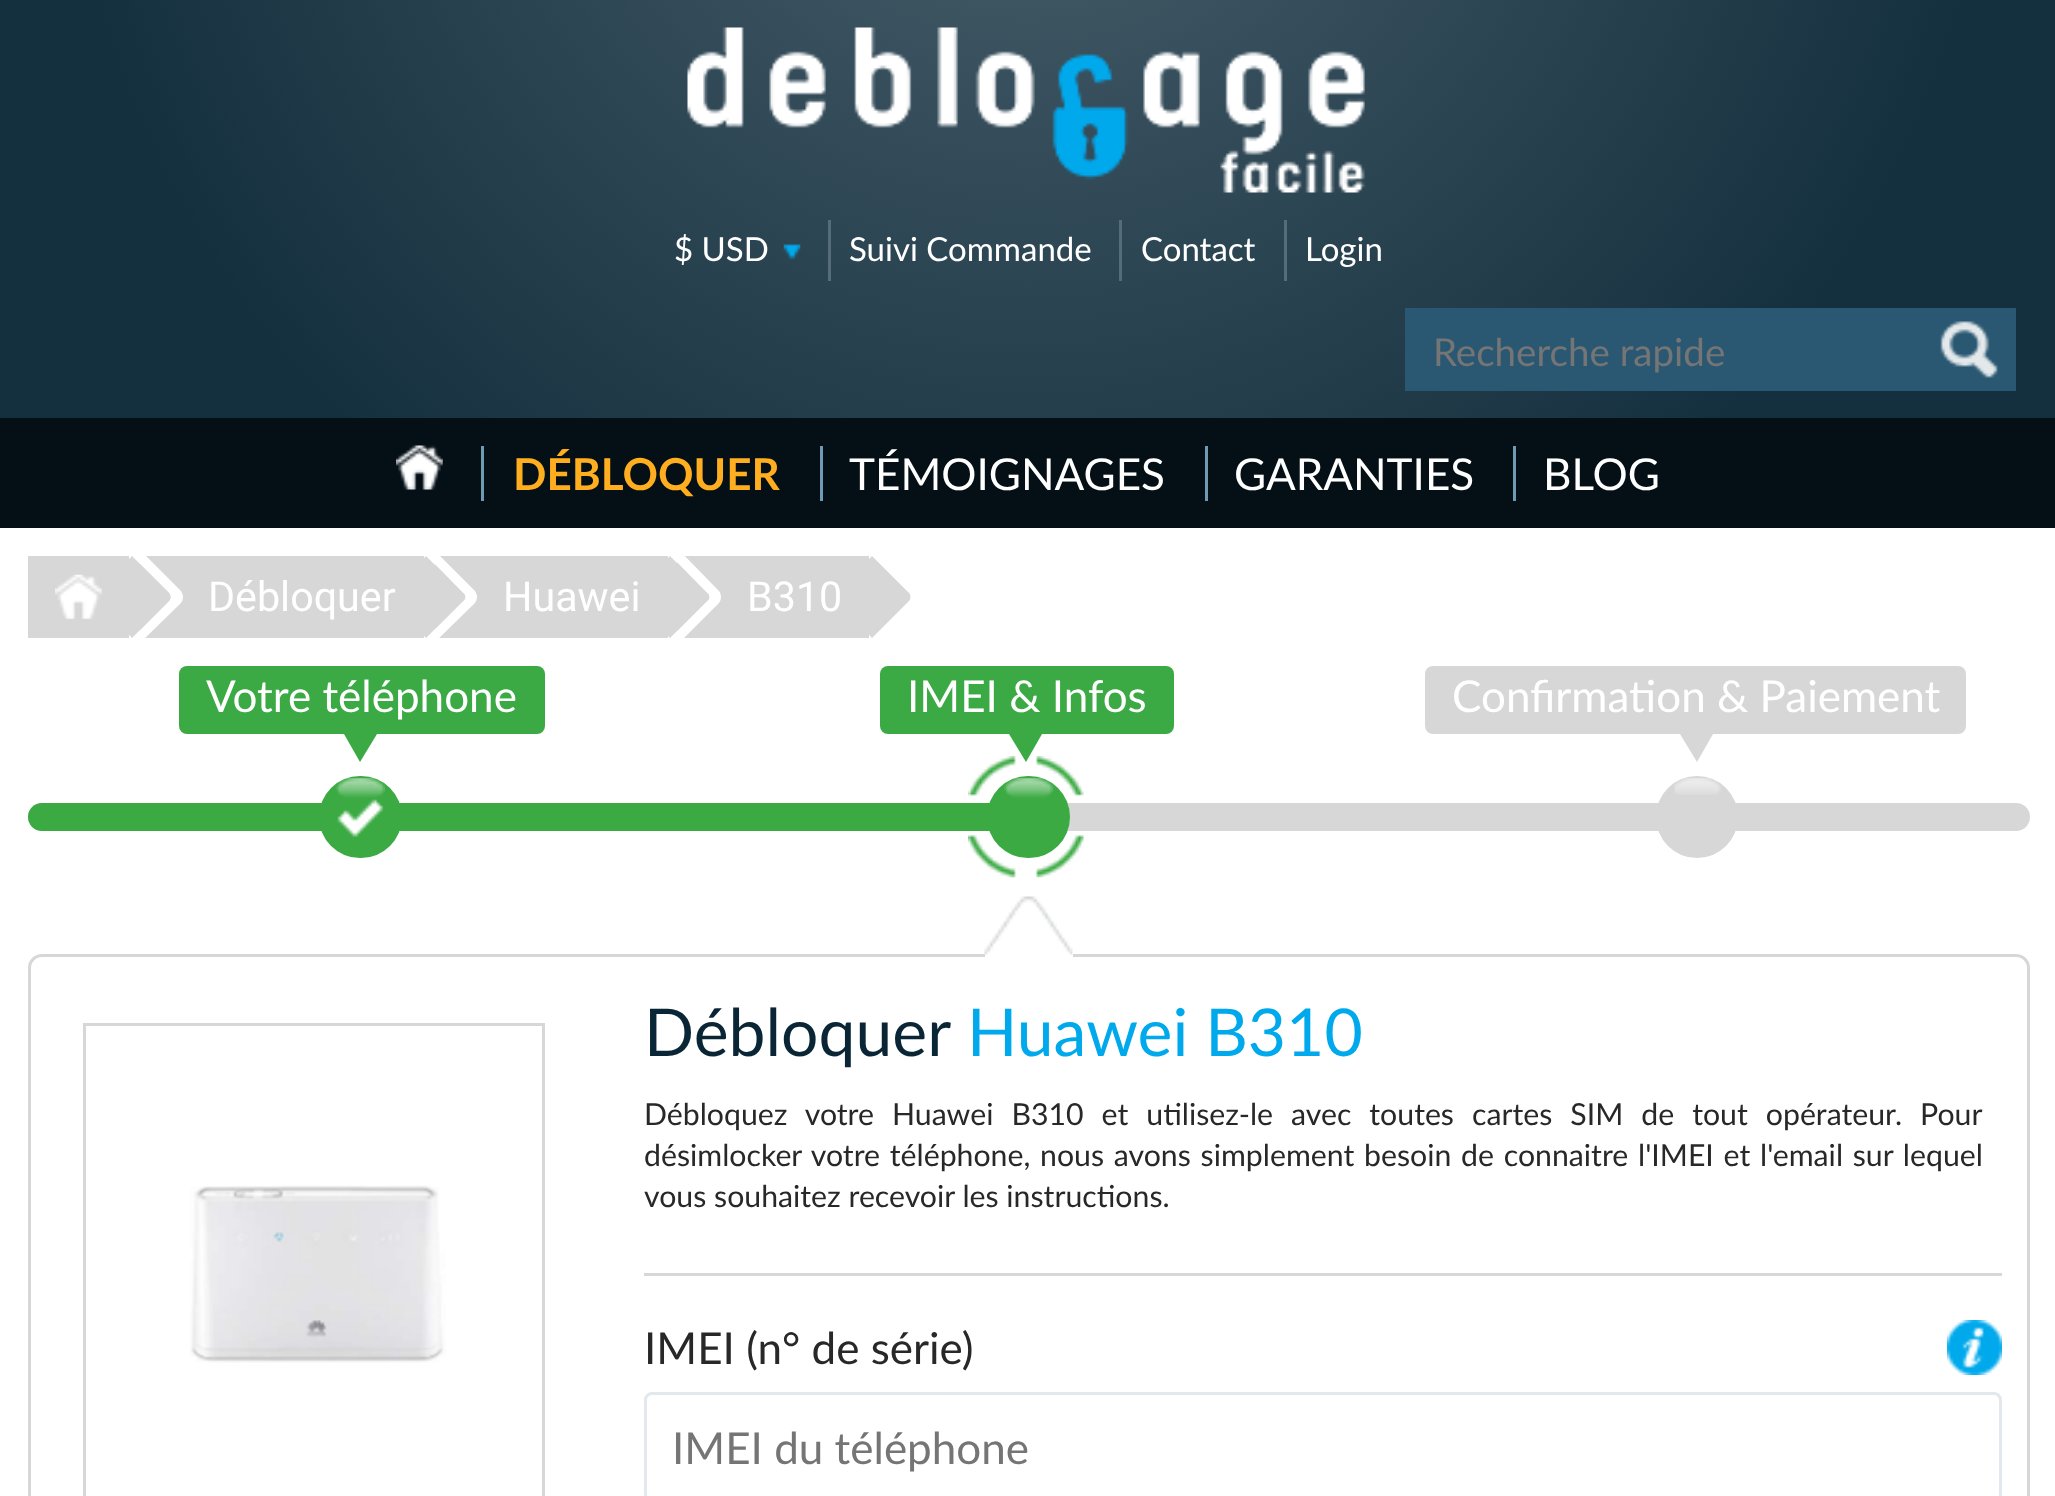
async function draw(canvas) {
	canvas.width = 2055;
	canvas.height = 1496;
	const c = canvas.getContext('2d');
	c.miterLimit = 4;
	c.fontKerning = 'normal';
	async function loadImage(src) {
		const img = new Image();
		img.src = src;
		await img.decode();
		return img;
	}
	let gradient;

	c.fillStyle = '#fff';
	c.fillRect(0, 0, 2055, 1496);
	gradient = c.createRadialGradient(1029, -264, 0, 1029, -264, 974);
	gradient.addColorStop(0.02, '#4b616d');
	gradient.addColorStop(1, '#142f3e');
	c.fillStyle = gradient;
	c.fillRect(0, 0, 2055, 418);
	c.drawImage(await loadImage('img1.png'), 687, 27, 678, 166);
	c.font = '33px Lato';
	c.fillStyle = '#fff';
	c.fillText('$ USD', 674, 261);
	c.drawImage(await loadImage('img2.png'), 783, 244, 18, 16);
	c.fillStyle = '#556c79';
	c.fillRect(828, 220, 3, 61);
	c.fillStyle = '#fff';
	c.fillText('Suivi Commande', 849, 261);
	c.fillStyle = '#556c79';
	c.fillRect(1119, 220, 3, 61);
	c.fillStyle = '#fff';
	c.fillText('Contact', 1141, 261);
	c.fillStyle = '#556c79';
	c.fillRect(1284, 220, 3, 61);
	c.fillStyle = '#fff';
	c.fillText('Login', 1305, 261);
	c.fillStyle = '#2a5872';
	c.fillRect(1405, 308, 611, 83);
	c.font = '38.5px Lato';
	c.fillStyle = '#757575';
	c.fillText('Recherche rapide', 1433, 366);
	c.drawImage(await loadImage('img3.png'), 1940, 321, 58, 57);
	c.fillStyle = '#040f16';
	c.fillRect(0, 418, 2055, 110);
	c.drawImage(await loadImage('img4.png'), 396, 445, 47, 45);
	c.fillStyle = '#6f9ab3';
	c.fillRect(481, 446, 3, 55);
	c.font = 'bold 44px Lato';
	c.fillStyle = '#ffae1f';
	c.fillText('DÉBLOQUER', 513, 490);
	c.fillStyle = '#6f9ab3';
	c.fillRect(820, 446, 3, 55);
	c.font = '44px Lato';
	c.fillStyle = '#fff';
	c.fillText('TÉMOIGNAGES', 849, 490);
	c.fillStyle = '#6f9ab3';
	c.fillRect(1205, 446, 3, 55);
	c.fillStyle = '#fff';
	c.fillText('GARANTIES', 1234, 490);
	c.fillStyle = '#6f9ab3';
	c.fillRect(1513, 446, 3, 55);
	c.fillStyle = '#fff';
	c.fillText('BLOG', 1543, 490);
	c.fillStyle = '#d7d7d7';
	c.fillRect(28, 556, 101, 82);
	c.drawImage(await loadImage('img5.png'), 55, 574, 47, 45);
	c.fillRect(140, 556, 284, 82);
	c.fillStyle = '#fff';
	c.beginPath();
	c.moveTo(140, 550);
	c.lineTo(133, 557);
	c.lineTo(169, 593);
	c.bezierCurveTo(171, 595, 171, 599, 169, 601);
	c.lineTo(133, 637);
	c.bezierCurveTo(135, 639, 137, 641, 140, 643);
	c.lineTo(180, 604);
	c.bezierCurveTo(184, 600, 184, 594, 180, 590);
	c.closePath();
	c.fill();
	c.fillStyle = '#d7d7d7';
	c.beginPath();
	c.moveTo(132, 556);
	c.lineTo(169, 593);
	c.bezierCurveTo(171, 595, 171, 599, 169, 601);
	c.lineTo(132, 638);
	c.bezierCurveTo(109, 615, 109, 578, 132, 556);
	c.closePath();
	c.fill();
	c.font = '41.25px Roboto';
	c.fillStyle = '#fff';
	c.fillText('Débloquer', 208, 611);
	c.fillStyle = '#d7d7d7';
	c.fillRect(435, 556, 233, 82);
	c.fillStyle = '#fff';
	c.beginPath();
	c.moveTo(434, 550);
	c.lineTo(428, 557);
	c.lineTo(463, 593);
	c.bezierCurveTo(466, 595, 466, 599, 463, 601);
	c.lineTo(428, 636);
	c.lineTo(434, 643);
	c.lineTo(474, 604);
	c.bezierCurveTo(478, 600, 478, 594, 474, 590);
	c.closePath();
	c.fill();
	c.fillStyle = '#d7d7d7';
	c.beginPath();
	c.moveTo(426, 556);
	c.lineTo(463, 593);
	c.bezierCurveTo(466, 595, 466, 599, 463, 601);
	c.lineTo(426, 638);
	c.bezierCurveTo(403, 615, 403, 578, 426, 556);
	c.closePath();
	c.fill();
	c.fillStyle = '#fff';
	c.fillText('Huawei', 503, 611);
	c.fillStyle = '#d7d7d7';
	c.fillRect(677, 556, 192, 82);
	c.fillStyle = '#fff';
	c.beginPath();
	c.moveTo(679, 550);
	c.lineTo(672, 557);
	c.lineTo(707, 593);
	c.bezierCurveTo(710, 595, 710, 599, 707, 601);
	c.lineTo(672, 636);
	c.bezierCurveTo(674, 639, 676, 641, 679, 643);
	c.lineTo(718, 604);
	c.bezierCurveTo(722, 600, 722, 594, 718, 590);
	c.closePath();
	c.fill();
	c.fillStyle = '#d7d7d7';
	c.beginPath();
	c.moveTo(670, 556);
	c.lineTo(707, 593);
	c.bezierCurveTo(710, 595, 710, 599, 707, 601);
	c.lineTo(670, 638);
	c.bezierCurveTo(648, 615, 648, 578, 670, 556);
	c.closePath();
	c.fill();
	c.fillStyle = '#fff';
	c.fillText('B310', 747, 611);
	c.fillStyle = '#d7d7d7';
	c.beginPath();
	c.moveTo(872, 556);
	c.lineTo(909, 593);
	c.bezierCurveTo(911, 595, 911, 599, 909, 601);
	c.lineTo(872, 638);
	c.bezierCurveTo(849, 615, 849, 578, 872, 556);
	c.closePath();
	c.fill();
	c.fillStyle = '#3baa44';
	c.beginPath();
	c.roundRect(179, 666, 366, 68, 8);
	c.fill();
	c.font = '44px Lato';
	c.fillStyle = '#fff';
	c.fillText('Votre téléphone', 206, 712);
	c.fillStyle = '#3baa44';
	c.beginPath();
	c.moveTo(344, 734);
	c.lineTo(377, 734);
	c.lineTo(360, 762);
	c.closePath();
	c.fill();
	c.fillStyle = '#d7d7d7';
	c.beginPath();
	c.roundRect(28, 803, 2002, 28, 14);
	c.fill();
	c.fillStyle = '#3caa43';
	c.beginPath();
	c.roundRect(28, 803, 668, 28, [14, 0, 0, 14]);
	c.fill();
	c.fillStyle = '#3baa43';
	c.beginPath();
	c.roundRect(319, 776, 83, 82, 41);
	c.fill();
	c.drawImage(await loadImage('img6.png'), 337, 799, 47, 38);
	c.drawImage(await loadImage('img7.png'), 335, 778, 50, 20);
	c.fillStyle = '#3baa44';
	c.beginPath();
	c.roundRect(880, 666, 294, 68, 8);
	c.fill();
	c.fillStyle = '#fff';
	c.fillText('IMEI & Infos', 907, 712);
	c.fillStyle = '#3baa44';
	c.beginPath();
	c.moveTo(1009, 734);
	c.lineTo(1042, 734);
	c.lineTo(1026, 762);
	c.closePath();
	c.fill();
	c.fillStyle = '#3caa43';
	c.fillRect(696, 803, 294, 28);
	c.fillStyle = '#3baa43';
	c.beginPath();
	c.roundRect(987, 776, 83, 82, 41);
	c.fill();
	c.drawImage(await loadImage('img8.png'), 968, 756, 116, 122);
	c.drawImage(await loadImage('img9.png'), 1004, 778, 50, 20);
	c.beginPath();
	c.roundRect(29.5, 955.5, 1999, 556, 12.5);
	c.strokeStyle = '#d7d7d7';
	c.lineWidth = 3;
	c.stroke();
	c.fillStyle = '#fff';
	c.fillRect(985, 954, 88, 3);
	c.drawImage(await loadImage('img10.png'), 984, 896, 89, 59);
	c.fillStyle = '#d7d7d7';
	c.beginPath();
	c.roundRect(1425, 666, 541, 68, 8);
	c.fill();
	c.fillStyle = '#fff';
	c.fillText('Confirmation & Paiement', 1452, 712);
	c.fillStyle = '#d7d7d7';
	c.beginPath();
	c.moveTo(1680, 734);
	c.lineTo(1713, 734);
	c.lineTo(1697, 762);
	c.closePath();
	c.fill();
	c.beginPath();
	c.arc(1697, 817, 41, 0, 2 * Math.PI);
	c.fill();
	c.drawImage(await loadImage('img11.png'), 1674, 778, 47, 17);
	c.strokeRect(84.5, 1024.5, 459, 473);
	c.drawImage(await loadImage('img12.png'), 190, 1185, 256, 178);
	c.fillRect(644, 1273, 1358, 3);
	c.font = '66px Lato';
	c.fillStyle = '#0a2636';
	c.fillText('Débloquer', 644, 1056);
	c.fillStyle = '#00a9ec';
	c.fillText('Huawei B310', 967, 1056);
	c.wordSpacing = '10.25px';
	c.font = '30.25px Lato';
	c.fillStyle = '#282828';
	c.fillText('Débloquez votre Huawei B310 et utilisez-le avec toutes cartes SIM de tout opérateur. Pour', 644, 1125);
	c.wordSpacing = '2px';
	c.fillText('désimlocker votre téléphone, nous avons simplement besoin de connaitre l\'IMEI et l\'email sur lequel', 644, 1166);
	c.wordSpacing = '0px';
	c.fillText('vous souhaitez recevoir les instructions.', 644, 1207);
	c.font = '44px Lato';
	c.fillText('IMEI (n° de série)', 644, 1364);
	c.drawImage(await loadImage('img13.png'), 1947, 1320, 55, 55);
	c.beginPath();
	c.roundRect(645.5, 1393.5, 1355, 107, 6.5);
	c.strokeStyle = '#e2e8eb';
	c.stroke();
	c.fillStyle = '#757575';
	c.fillText('IMEI du téléphone', 672, 1464);
}

draw(document.querySelector('canvas'));
